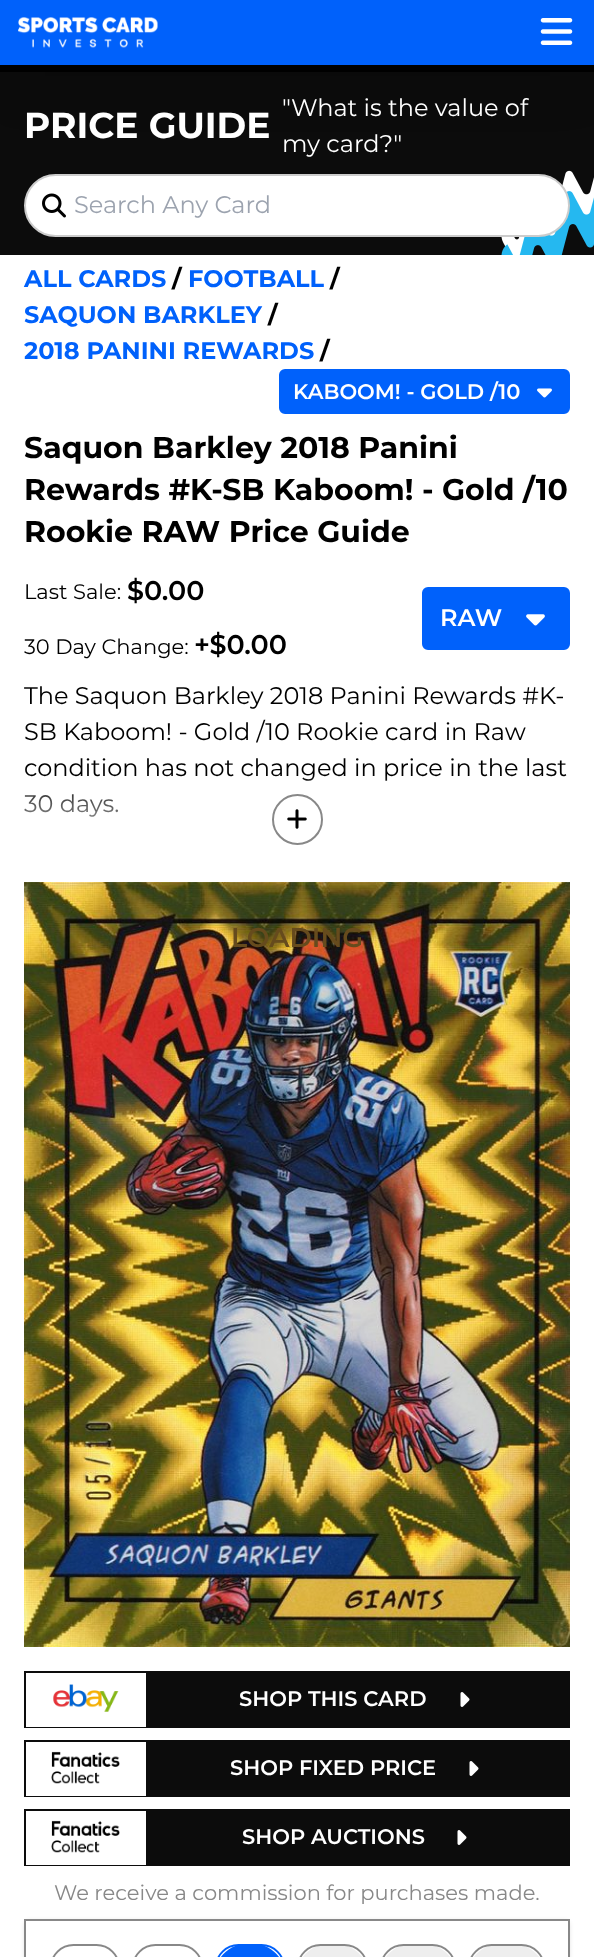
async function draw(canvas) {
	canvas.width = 594;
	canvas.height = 1957;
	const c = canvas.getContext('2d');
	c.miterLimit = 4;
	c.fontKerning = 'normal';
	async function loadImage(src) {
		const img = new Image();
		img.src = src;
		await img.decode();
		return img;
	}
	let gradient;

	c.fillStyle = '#fff';
	c.fillRect(0, 0, 594, 1957);
	c.fillStyle = '#0c0c0c';
	c.fillRect(0, 72, 594, 183);
	c.fillStyle = '#0000001a';
	c.filter = 'blur(19px)';
	c.beginPath();
	c.rect(8, 38, 579, 57);
	c.fill();
	c.filter = 'none';
	c.fillStyle = '#0061fb';
	c.fillRect(0, 0, 594, 65);
	c.fillStyle = '#000';
	c.fillRect(0, 65, 594, 7);
	c.drawImage(await loadImage('img1.png'), 18, 17, 140, 31);
	c.drawImage(await loadImage('img2.png'), 540, 18, 33, 27);
	c.font = 'bold 36px Montserrat';
	c.fillStyle = '#fff';
	c.fillText('PRICE GUIDE', 24, 138);
	c.font = '24px Montserrat';
	c.fillText('"What is the value of', 282, 116);
	c.fillText('my card?"', 282, 152);
	c.drawImage(await loadImage('img4.png'), 501, 170, 93, 85);
	c.beginPath();
	c.roundRect(25, 175, 544, 61, 30.5);
	c.fill();
	c.strokeStyle = '#ccc';
	c.lineWidth = 2;
	c.stroke();
	c.drawImage(await loadImage('img3.png'), 42, 193, 24, 25);
	c.fillStyle = '#9ca3af';
	c.fillText('Search Any Card', 74, 213);
	c.font = 'bold 24px Montserrat';
	c.fillStyle = '#0061fb';
	c.fillText('ALL CARDS', 24, 287);
	c.fillStyle = '#000';
	c.fillText('/', 172, 287);
	c.fillStyle = '#0061fb';
	c.fillText('FOOTBALL', 188, 287);
	c.fillStyle = '#000';
	c.fillText('/', 330, 287);
	c.fillStyle = '#0061fb';
	c.fillText('SAQUON BARKLEY', 24, 323);
	c.fillStyle = '#000';
	c.fillText('/', 268, 323);
	c.fillStyle = '#0061fb';
	c.fillText('2018 PANINI REWARDS', 24, 359);
	c.fillStyle = '#000';
	c.fillText('/', 320, 359);
	c.fillStyle = '#0061fb';
	c.beginPath();
	c.roundRect(280, 370, 289, 43, 5);
	c.fill();
	c.strokeStyle = '#0061fb';
	c.stroke();
	c.font = '600 21px Montserrat';
	c.fillStyle = '#fff';
	c.fillText('KABOOM! - GOLD /10', 293, 399);
	c.drawImage(await loadImage('img5.png'), 537, 388, 15, 10);
	c.font = 'bold 30px Montserrat';
	c.fillStyle = '#000';
	for (const [text, x, y] of [
		['Saquon Barkley 2018 Panini', 24, 458],
		['Rewards #K-SB Kaboom! - Gold /10', 24, 500],
		['Rookie RAW Price Guide', 24, 542],
	]) {
		c.fillText(text, x, y);
	}
	c.font = '21px Montserrat';
	c.fillText('Last Sale:', 24, 599);
	c.font = '600 27px Montserrat';
	c.fillText('$0.00', 127, 600);
	c.font = '21px Montserrat';
	c.fillText('30 Day Change:', 24, 654);
	c.font = '600 27px Montserrat';
	c.fillText('+$0.00', 194, 654);
	c.fillStyle = '#0061fb';
	c.beginPath();
	c.roundRect(423, 588, 146, 61, 5);
	c.fill();
	c.stroke();
	c.font = '600 24px Montserrat';
	c.fillStyle = '#fff';
	c.fillText('RAW', 440, 626);
	c.drawImage(await loadImage('img6.png'), 526, 614, 19, 12);
	c.font = '24px Montserrat';
	c.fillStyle = '#000';
	for (const [text, x, y] of [
		['The Saquon Barkley 2018 Panini Rewards #K-', 24, 704],
		['SB Kaboom! - Gold /10 Rookie card in Raw', 24, 740],
		['condition has not changed in price in the last', 24, 776],
		['30 days.', 24, 812],
	]) {
		c.fillText(text, x, y);
	}
	gradient = c.createLinearGradient(297, 870, 297, 774);
	gradient.addColorStop(0.1, '#fff');
	gradient.addColorStop(1, '#ffffff00');
	c.fillStyle = gradient;
	c.fillRect(24, 776, 363, 41);
	c.beginPath();
	c.arc(297.5, 819.5, 24.5, 0, 2 * Math.PI);
	c.strokeStyle = '#888';
	c.stroke();
	c.drawImage(await loadImage('img7.png'), 287, 809, 20, 20);
	c.drawImage(await loadImage('img8.png'), 24, 882, 546, 765);
	c.fillStyle = '#0c0c0c';
	c.fillRect(24, 1671, 546, 57);
	c.fillStyle = '#fff';
	c.fillRect(26, 1673, 120, 54);
	c.drawImage(await loadImage('img9.png'), 53, 1684, 66, 28);
	c.font = '600 21px Montserrat';
	c.fillText('SHOP THIS CARD', 239, 1706);
	c.drawImage(await loadImage('img10.png'), 460, 1692, 10, 15);
	c.fillStyle = '#0c0c0c';
	c.fillRect(24, 1740, 546, 57);
	c.fillStyle = '#fff';
	c.fillRect(26, 1742, 120, 54);
	c.drawImage(await loadImage('img11.png'), 51, 1751, 69, 33);
	c.fillText('SHOP FIXED PRICE', 230, 1775);
	c.drawImage(await loadImage('img10.png'), 469, 1761, 10, 15);
	c.fillStyle = '#0c0c0c';
	c.fillRect(24, 1809, 546, 57);
	c.fillStyle = '#fff';
	c.fillRect(26, 1811, 120, 54);
	c.drawImage(await loadImage('img11.png'), 51, 1820, 69, 33);
	c.fillText('SHOP AUCTIONS', 242, 1844);
	c.drawImage(await loadImage('img10.png'), 457, 1830, 10, 15);
	c.font = '21px Montserrat';
	c.fillStyle = '#888';
	c.fillText('We receive a commission for purchases made.', 54, 1900);
	c.save();
	c.beginPath();
	c.moveTo(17, 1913);
	c.lineTo(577, 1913);
	c.lineTo(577, 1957);
	c.lineTo(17, 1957);
	c.closePath();
	c.moveTo(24, 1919);
	c.lineTo(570, 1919);
	c.lineTo(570, 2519);
	c.bezierCurveTo(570, 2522.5, 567.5, 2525, 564, 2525);
	c.lineTo(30, 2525);
	c.bezierCurveTo(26.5, 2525, 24, 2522.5, 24, 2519);
	c.closePath();
	c.clip('evenodd');
	c.fillStyle = '#0000001a';
	c.filter = 'blur(2px)';
	c.beginPath();
	c.roundRect(24, 1920, 546, 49, 6);
	c.fill();
	c.filter = 'none';
	c.restore();
	c.strokeRect(25, 1920, 544, 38);
	c.beginPath();
	c.roundRect(51, 1945, 68, 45, 30.5);
	c.stroke();
	c.beginPath();
	c.roundRect(133, 1945, 69, 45, 30.5);
	c.stroke();
	c.fillStyle = '#0061fb';
	c.beginPath();
	c.moveTo(246.5, 1944);
	c.lineTo(253.5, 1944);
	c.bezierCurveTo(271, 1944, 285, 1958, 285, 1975.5);
	c.lineTo(285, 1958);
	c.lineTo(215, 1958);
	c.lineTo(215, 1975.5);
	c.bezierCurveTo(215, 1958, 229, 1944, 246.5, 1944);
	c.closePath();
	c.fill();
	c.beginPath();
	c.roundRect(216, 1945, 68, 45, 30.5);
	c.strokeStyle = '#0061fb';
	c.stroke();
	c.fillStyle = '#eee';
	c.beginPath();
	c.moveTo(328.5, 1944);
	c.lineTo(336.5, 1944);
	c.bezierCurveTo(354, 1944, 368, 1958, 368, 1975.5);
	c.lineTo(368, 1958);
	c.lineTo(297, 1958);
	c.lineTo(297, 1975.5);
	c.bezierCurveTo(297, 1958, 311, 1944, 328.5, 1944);
	c.closePath();
	c.fill();
	c.beginPath();
	c.roundRect(298, 1945, 69, 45, 30.5);
	c.strokeStyle = '#888';
	c.stroke();
	c.beginPath();
	c.moveTo(411.5, 1944);
	c.lineTo(424.5, 1944);
	c.bezierCurveTo(442, 1944, 456, 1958, 456, 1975.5);
	c.lineTo(456, 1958);
	c.lineTo(380, 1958);
	c.lineTo(380, 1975.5);
	c.bezierCurveTo(380, 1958, 394, 1944, 411.5, 1944);
	c.closePath();
	c.fill();
	c.beginPath();
	c.roundRect(381, 1945, 74, 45, 30.5);
	c.stroke();
	c.beginPath();
	c.moveTo(499.5, 1944);
	c.lineTo(513.5, 1944);
	c.bezierCurveTo(531, 1944, 545, 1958, 545, 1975.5);
	c.lineTo(545, 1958);
	c.lineTo(468, 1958);
	c.lineTo(468, 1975.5);
	c.bezierCurveTo(468, 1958, 482, 1944, 499.5, 1944);
	c.closePath();
	c.fill();
	c.beginPath();
	c.roundRect(469, 1945, 75, 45, 30.5);
	c.stroke();
	c.font = '600 27px Montserrat';
	c.fillStyle = '#664b1d';
	c.fillText('LOADING', 231, 947);
}

draw(document.querySelector('canvas'));
